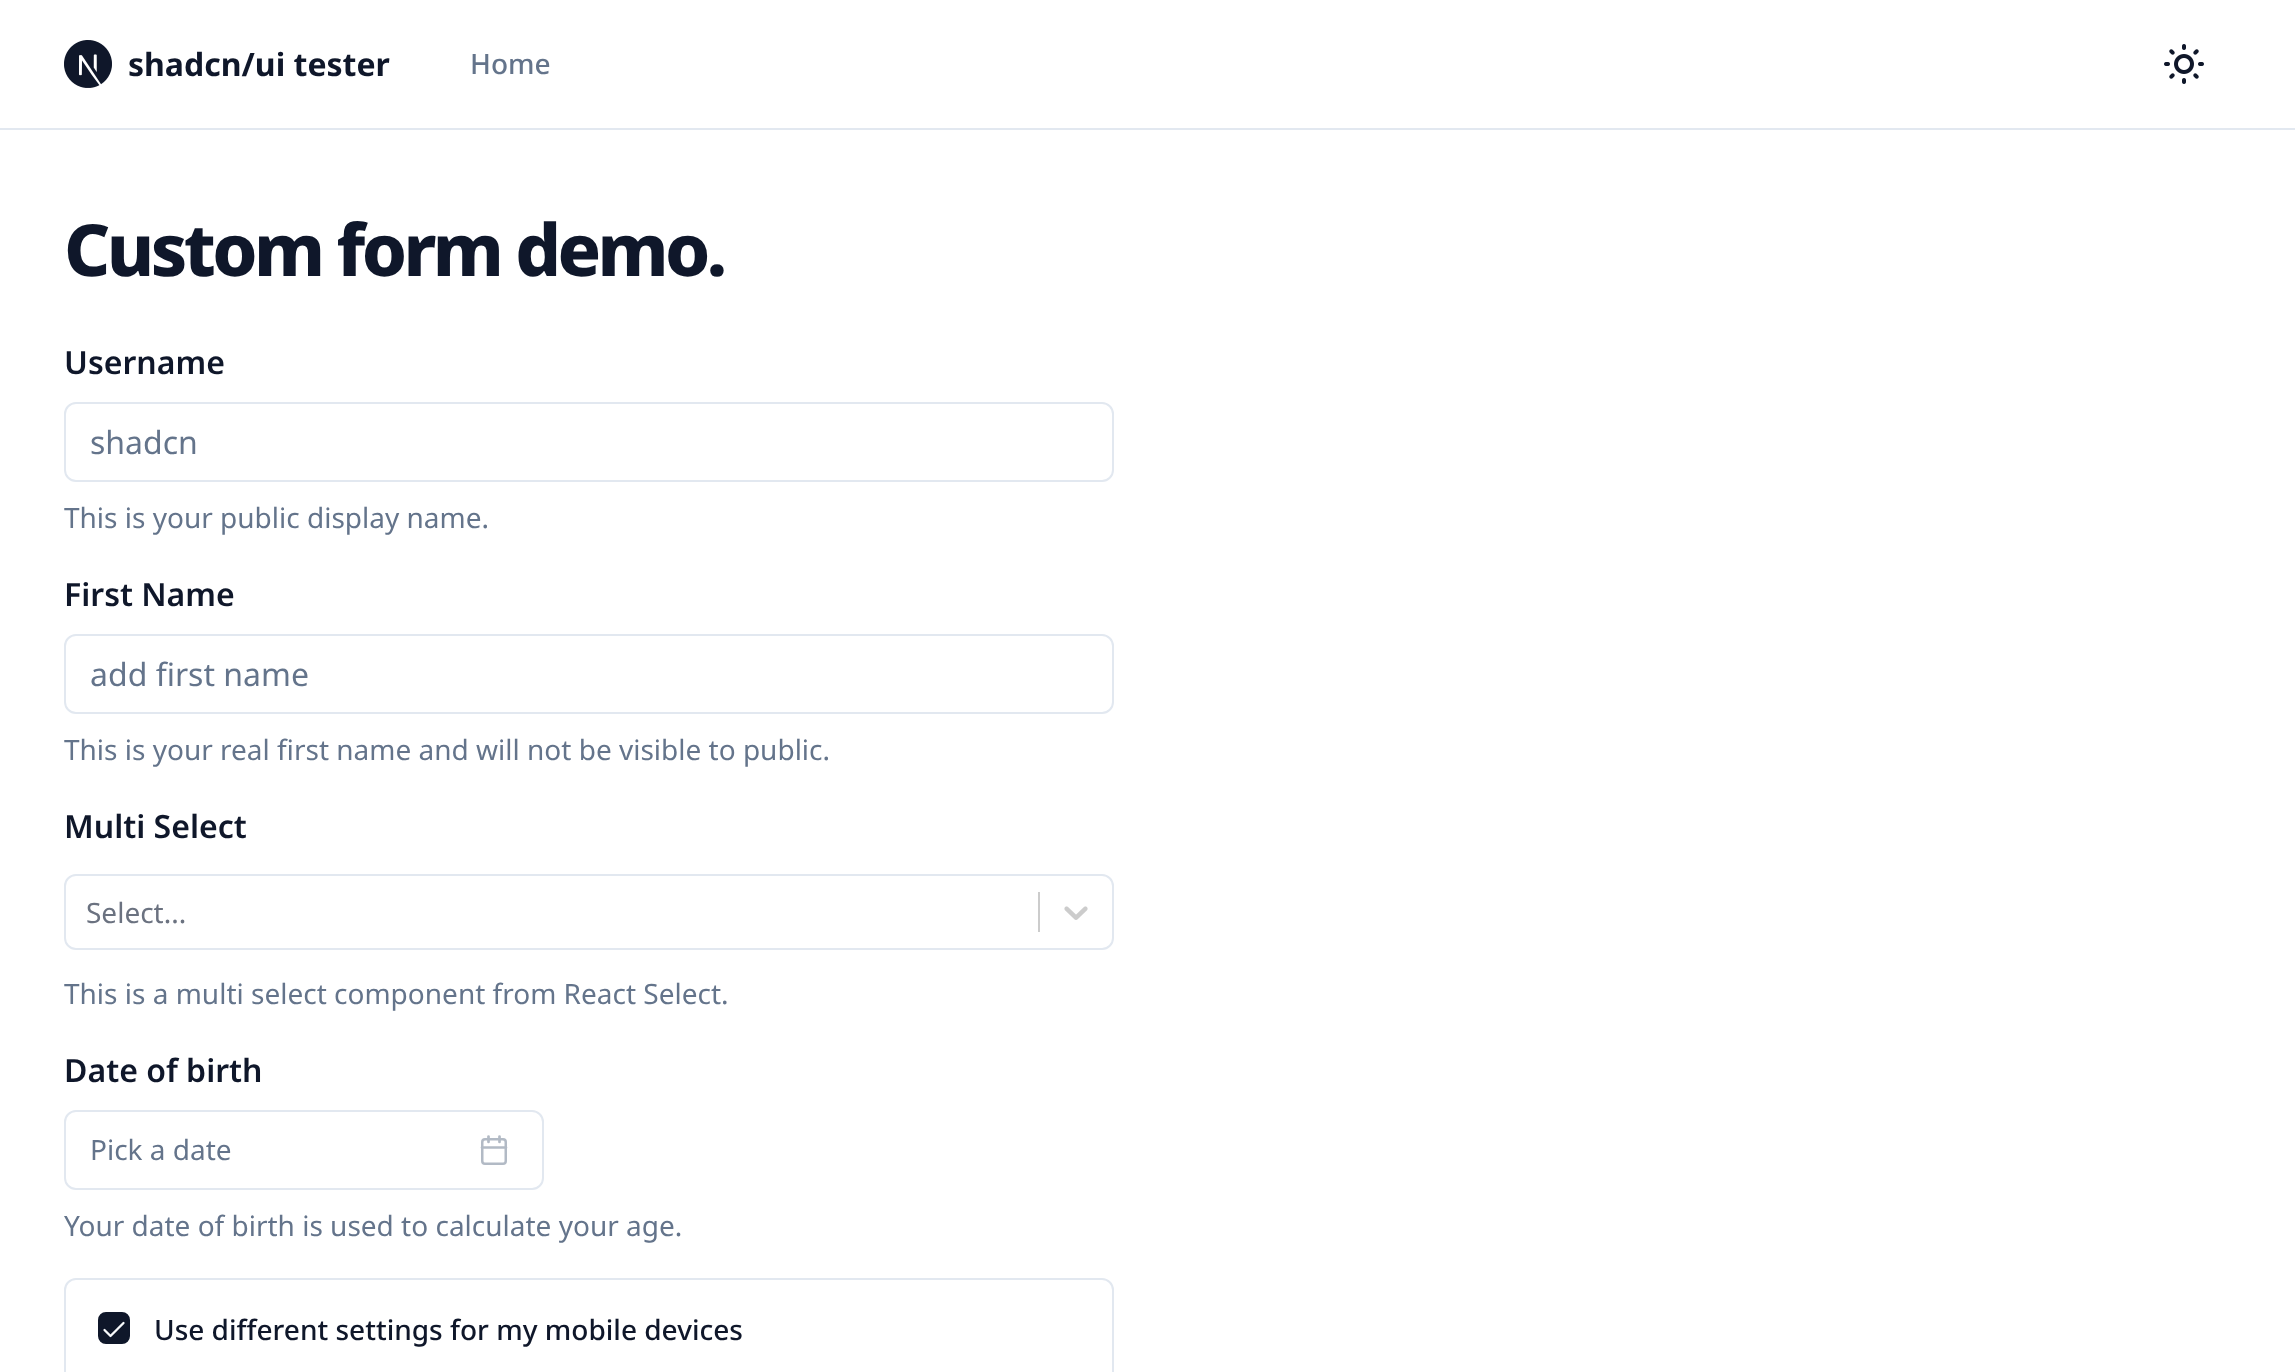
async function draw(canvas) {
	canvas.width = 2295;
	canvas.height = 1372;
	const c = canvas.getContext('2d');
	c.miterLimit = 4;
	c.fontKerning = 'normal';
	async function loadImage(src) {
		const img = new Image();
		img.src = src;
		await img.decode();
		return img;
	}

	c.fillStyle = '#fff';
	c.fillRect(0, 0, 2295, 1372);
	c.fillStyle = '#e2e8f0';
	c.fillRect(0, 128, 2295, 2);
	c.drawImage(await loadImage('img1.png'), 64, 40, 48, 48);
	c.font = 'bold 32px Noto Sans';
	c.fillStyle = '#0f172a';
	c.fillText('shadcn/ui tester', 128, 76);
	c.font = '500 28px Noto Sans';
	c.fillStyle = '#64748b';
	c.fillText('Home', 470, 74);
	c.drawImage(await loadImage('img2.png'), 2164, 44, 40, 40);
	c.letterSpacing = '-3.6px';
	c.font = '800 72px Noto Sans';
	c.fillStyle = '#0f172a';
	c.fillText('Custom form demo.', 64, 276);
	c.letterSpacing = '0px';
	c.font = '600 32px Noto Sans';
	c.fillText('Username', 64, 374);
	c.beginPath();
	c.roundRect(65, 403, 1048, 78, 11);
	c.strokeStyle = '#e2e8f0';
	c.lineWidth = 2;
	c.stroke();
	c.font = '32px Noto Sans';
	c.fillStyle = '#64748b';
	c.fillText('shadcn', 90, 454);
	c.font = '28px Noto Sans';
	c.fillText('This is your public display name.', 64, 528);
	c.font = '600 32px Noto Sans';
	c.fillStyle = '#0f172a';
	c.fillText('First Name', 64, 606);
	c.beginPath();
	c.roundRect(65, 635, 1048, 78, 11);
	c.stroke();
	c.font = '32px Noto Sans';
	c.fillStyle = '#64748b';
	c.fillText('add first name', 90, 686);
	c.font = '28px Noto Sans';
	c.fillText('This is your real first name and will not be visible to public.', 64, 760);
	c.font = '600 32px Noto Sans';
	c.fillStyle = '#0f172a';
	c.fillText('Multi Select', 64, 838);
	c.beginPath();
	c.roundRect(65, 875, 1048, 74, 11);
	c.stroke();
	c.font = '28px Noto Sans';
	c.fillStyle = '#6b7280';
	c.fillText('Select...', 86, 923);
	c.fillStyle = '#ccc';
	c.fillRect(1038, 892, 2, 40);
	c.drawImage(await loadImage('img3.png'), 1064, 906, 24, 14);
	c.fillStyle = '#64748b';
	c.fillText('This is a multi select component from React Select.', 64, 1004);
	c.font = '600 32px Noto Sans';
	c.fillStyle = '#0f172a';
	c.fillText('Date of birth', 64, 1082);
	c.beginPath();
	c.roundRect(65, 1111, 478, 78, 11);
	c.stroke();
	c.font = '28px Noto Sans';
	c.fillStyle = '#64748b';
	c.fillText('Pick a date', 90, 1160);
	c.beginPath();
	c.roundRect(482.25, 1139.25, 23.5, 24.5, 2.75);
	c.strokeStyle = '#b2bac5';
	c.lineWidth = 2.5;
	c.stroke();
	c.beginPath();
	c.moveTo(499.5, 1136.5);
	c.lineTo(499.5, 1142);
	c.moveTo(488.5, 1136.5);
	c.lineTo(488.5, 1142);
	c.moveTo(482, 1147.5);
	c.lineTo(506, 1147.5);
	c.lineWidth = 2.7;
	c.lineCap = 'round';
	c.lineJoin = 'round';
	c.stroke();
	c.fillText('Your date of birth is used to calculate your age.', 64, 1236);
	c.beginPath();
	c.roundRect(65, 1279, 1048, 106, 11);
	c.strokeStyle = '#e2e8f0';
	c.lineWidth = 2;
	c.lineJoin = 'miter';
	c.stroke();
	c.fillStyle = '#0f172a';
	c.beginPath();
	c.roundRect(99, 1313, 30, 30, 7);
	c.fill();
	c.strokeStyle = '#0f172a';
	c.stroke();
	c.beginPath();
	c.moveTo(123.5, 1323);
	c.lineTo(110.5, 1336);
	c.lineTo(104.5, 1330);
	c.strokeStyle = '#f8fafc';
	c.lineWidth = 2.3;
	c.lineJoin = 'round';
	c.stroke();
	c.font = '500 28px Noto Sans';
	c.fillText('Use different settings for my mobile devices', 154, 1340);
}

draw(document.querySelector('canvas'));
